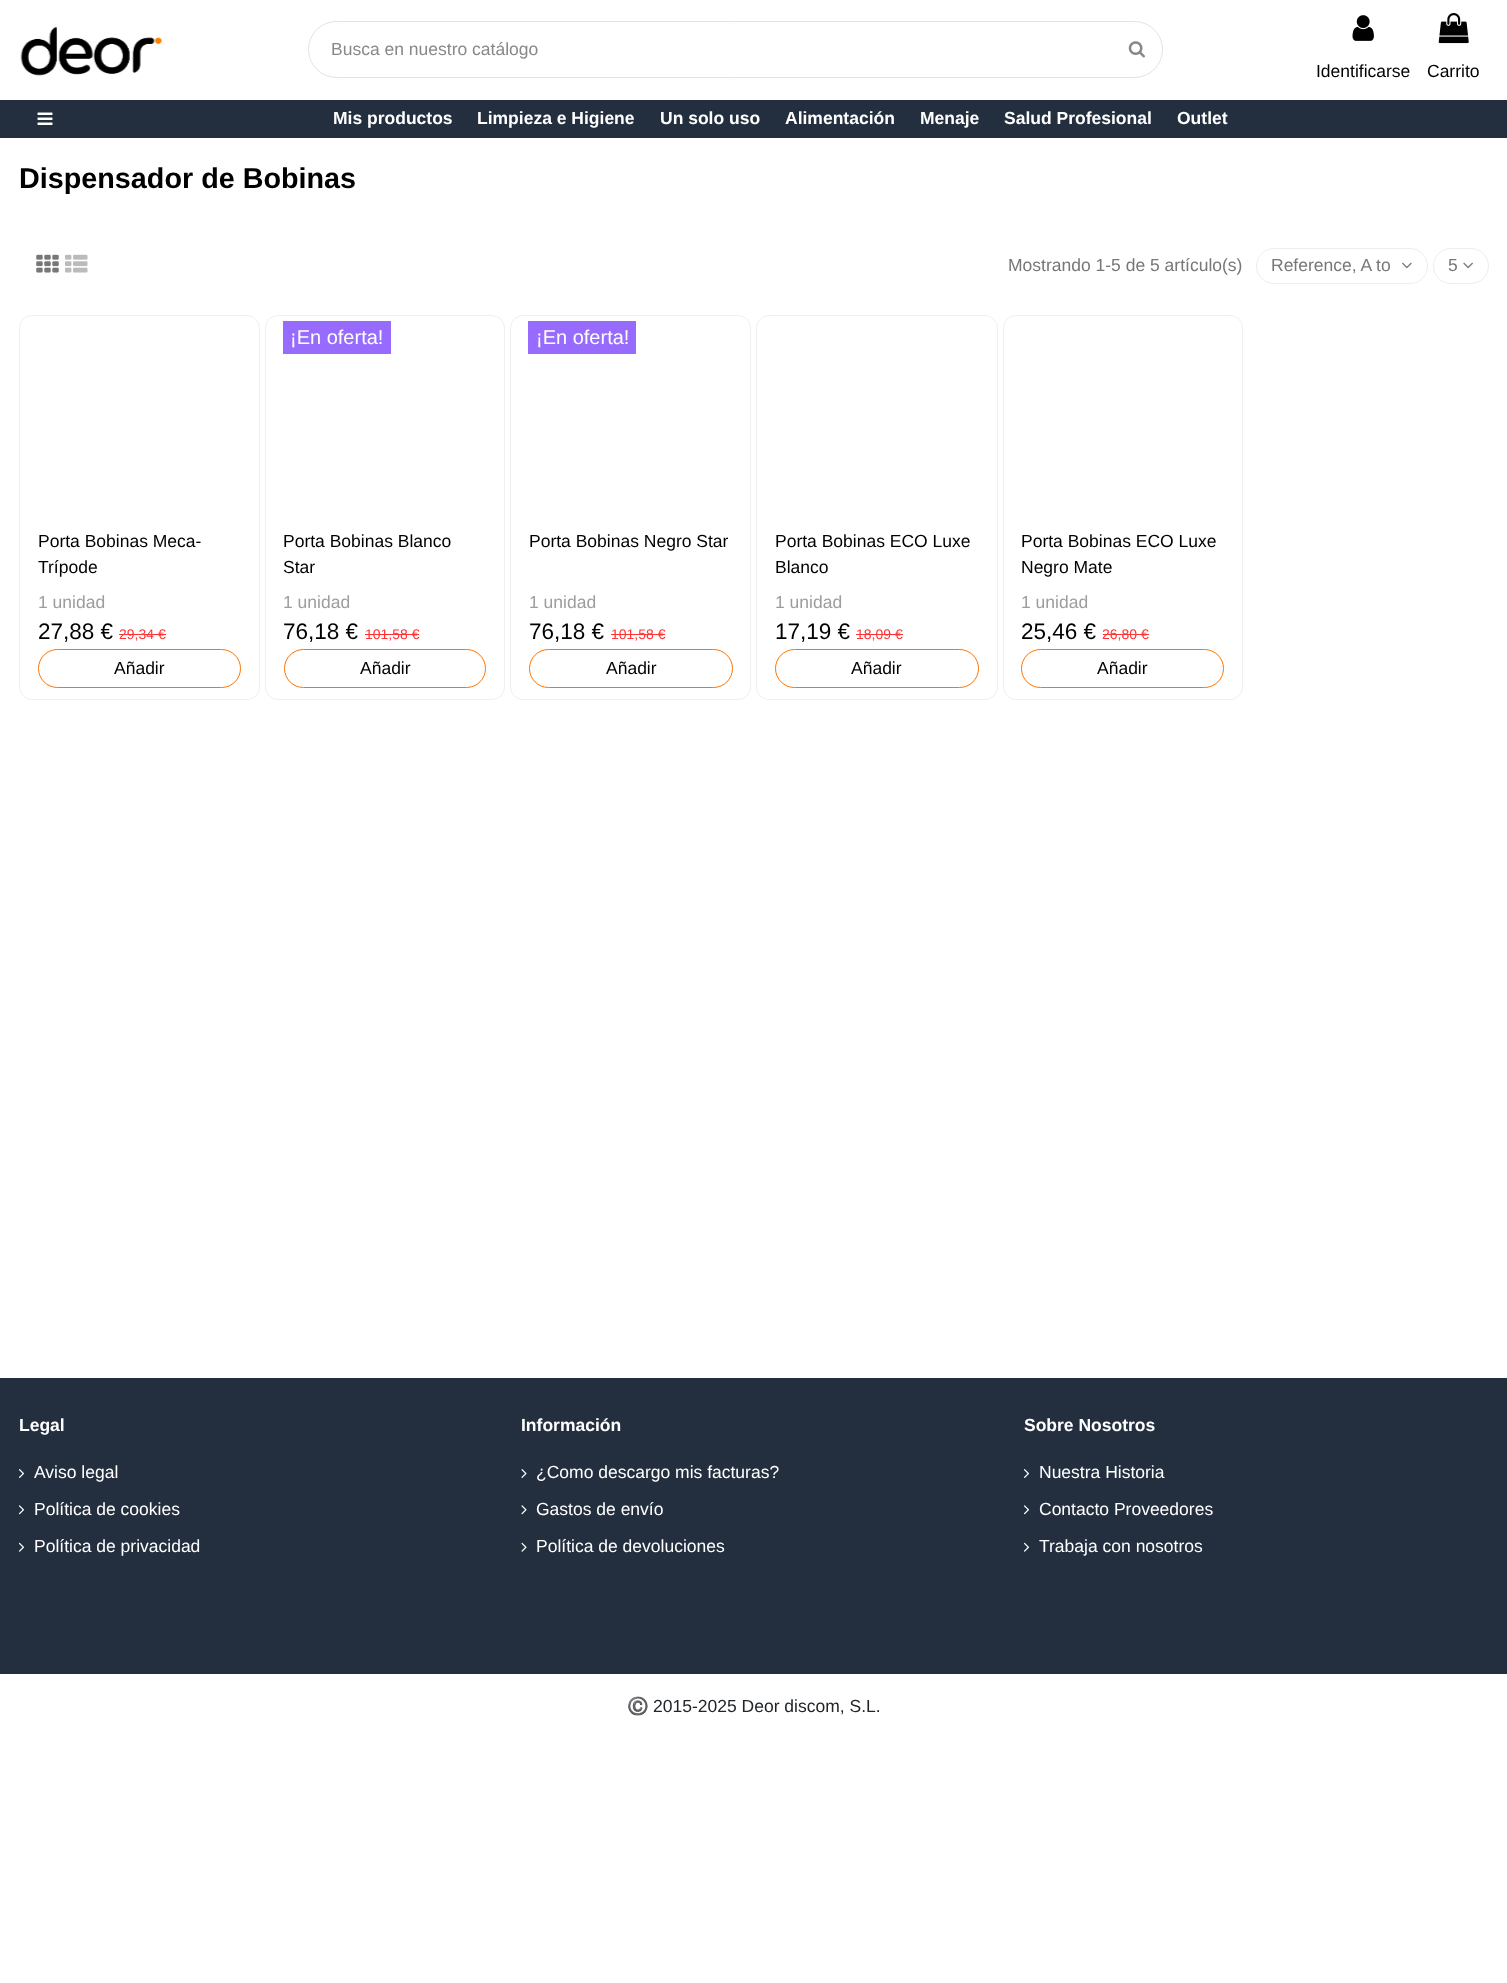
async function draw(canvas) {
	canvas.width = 1507;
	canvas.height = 1983;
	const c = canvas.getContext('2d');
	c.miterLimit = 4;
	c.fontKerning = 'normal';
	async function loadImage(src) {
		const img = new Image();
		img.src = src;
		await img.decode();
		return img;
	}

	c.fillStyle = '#fff';
	c.fillRect(0, 0, 1507, 1983);
	c.drawImage(await loadImage('img1.png'), 20, 26, 142, 50);
	c.beginPath();
	c.roundRect(308.5, 21.5, 854, 56, 28);
	c.strokeStyle = '#e3e3e3';
	c.stroke();
	c.font = '17.5px Liberation Sans';
	c.fillStyle = '#888';
	c.fillText('Busca en nuestro catálogo', 331, 55);
	c.drawImage(await loadImage('img2.png'), 1128, 41, 17, 17);
	c.drawImage(await loadImage('img3.png'), 1352, 15, 22, 26);
	c.fillStyle = '#000';
	c.fillText('Identificarse', 1316, 77);
	c.drawImage(await loadImage('img4.png'), 1438, 13, 31, 31);
	c.fillText('Carrito', 1427, 77);
	c.fillStyle = '#232f3e';
	c.fillRect(0, 100, 1507, 38);
	c.drawImage(await loadImage('img5.png'), 37, 112, 16, 13);
	c.font = 'bold 17.5px Liberation Sans';
	c.fillStyle = '#fff';
	for (const [text, x, y] of [
		['Mis productos', 333, 124],
		['Limpieza e Higiene', 477, 124],
		['Un solo uso', 660, 124],
		['Alimentación', 785, 124],
		['Menaje', 920, 124],
		['Salud Profesional', 1004, 124],
		['Outlet', 1177, 124],
	]) {
		c.fillText(text, x, y);
	}
	c.font = 'bold 28.75px Liberation Sans';
	c.fillStyle = '#000';
	c.fillText('Dispensador de Bobinas', 19, 188);
	c.drawImage(await loadImage('img6.png'), 36, 254, 23, 19);
	c.drawImage(await loadImage('img7.png'), 65, 254, 23, 19);
	c.font = '17.5px Liberation Sans';
	c.fillStyle = '#777';
	c.fillText('Mostrando 1-5 de 5 artículo(s)', 1008, 271);
	c.beginPath();
	c.roundRect(1256.5, 248.5, 171, 35, 17.5);
	c.strokeStyle = '#ededed';
	c.stroke();
	c.fillText('Reference, A to', 1271, 271);
	c.drawImage(await loadImage('img8.png'), 1402, 262, 10, 7);
	c.beginPath();
	c.roundRect(1433.5, 248.5, 55, 35, 17.5);
	c.stroke();
	c.fillText('5', 1448, 271);
	c.drawImage(await loadImage('img9.png'), 1463, 262, 10, 7);
	c.beginPath();
	c.roundRect(19.5, 315.5, 240, 384, 12.5);
	c.strokeStyle = '#efefef';
	c.stroke();
	c.fillStyle = '#000';
	c.fillText('Porta Bobinas Meca-', 38, 547);
	c.fillText('Trípode', 38, 573);
	c.fillStyle = '#9d9d9d';
	c.fillText('1 unidad', 38, 608);
	c.font = '22.5px Liberation Sans';
	c.fillStyle = '#000';
	c.fillText('27,88 €', 38, 639);
	c.font = '14px Liberation Sans';
	c.fillStyle = '#f33';
	c.fillText('29,34 €', 119, 639);
	c.fillRect(119, 634, 47, 1);
	c.beginPath();
	c.roundRect(38.5, 649.5, 202, 38, 19);
	c.strokeStyle = '#ff7400';
	c.stroke();
	c.font = '17.5px Liberation Sans';
	c.fillStyle = '#000';
	c.fillText('Añadir', 114, 674);
	c.beginPath();
	c.roundRect(265.5, 315.5, 239, 384, 12.5);
	c.strokeStyle = '#efefef';
	c.stroke();
	c.fillStyle = '#976bfe';
	c.fillRect(283, 321, 108, 33);
	c.font = '20px Liberation Sans';
	c.fillStyle = '#fff';
	c.fillText('¡En oferta!', 290, 344);
	c.font = '17.5px Liberation Sans';
	c.fillStyle = '#000';
	c.fillText('Porta Bobinas Blanco', 283, 547);
	c.fillText('Star', 283, 573);
	c.fillStyle = '#9d9d9d';
	c.fillText('1 unidad', 283, 608);
	c.font = '22.5px Liberation Sans';
	c.fillStyle = '#000';
	c.fillText('76,18 €', 283, 639);
	c.font = '14px Liberation Sans';
	c.fillStyle = '#f33';
	c.fillText('101,58 €', 365, 639);
	c.fillRect(365, 634, 54, 1);
	c.beginPath();
	c.roundRect(284.5, 649.5, 201, 38, 19);
	c.strokeStyle = '#ff7400';
	c.stroke();
	c.font = '17.5px Liberation Sans';
	c.fillStyle = '#000';
	c.fillText('Añadir', 360, 674);
	c.beginPath();
	c.roundRect(510.5, 315.5, 240, 384, 12.5);
	c.strokeStyle = '#efefef';
	c.stroke();
	c.fillStyle = '#976bfe';
	c.fillRect(528, 321, 108, 33);
	c.font = '20px Liberation Sans';
	c.fillStyle = '#fff';
	c.fillText('¡En oferta!', 536, 344);
	c.font = '17.5px Liberation Sans';
	c.fillStyle = '#000';
	c.fillText('Porta Bobinas Negro Star', 529, 547);
	c.fillStyle = '#9d9d9d';
	c.fillText('1 unidad', 529, 608);
	c.font = '22.5px Liberation Sans';
	c.fillStyle = '#000';
	c.fillText('76,18 €', 529, 639);
	c.font = '14px Liberation Sans';
	c.fillStyle = '#f33';
	c.fillText('101,58 €', 611, 639);
	c.fillRect(611, 634, 54, 1);
	c.beginPath();
	c.roundRect(529.5, 649.5, 203, 38, 19);
	c.strokeStyle = '#ff7400';
	c.stroke();
	c.font = '17.5px Liberation Sans';
	c.fillStyle = '#000';
	c.fillText('Añadir', 606, 674);
	c.beginPath();
	c.roundRect(756.5, 315.5, 241, 384, 12.5);
	c.strokeStyle = '#efefef';
	c.stroke();
	c.fillText('Porta Bobinas ECO Luxe', 775, 547);
	c.fillText('Blanco', 775, 573);
	c.fillStyle = '#9d9d9d';
	c.fillText('1 unidad', 775, 608);
	c.font = '22.5px Liberation Sans';
	c.fillStyle = '#000';
	c.fillText('17,19 €', 775, 639);
	c.font = '14px Liberation Sans';
	c.fillStyle = '#f33';
	c.fillText('18,09 €', 856, 639);
	c.fillRect(856, 634, 47, 1);
	c.beginPath();
	c.roundRect(775.5, 649.5, 203, 38, 19);
	c.strokeStyle = '#ff7400';
	c.stroke();
	c.font = '17.5px Liberation Sans';
	c.fillStyle = '#000';
	c.fillText('Añadir', 851, 674);
	c.beginPath();
	c.roundRect(1003.5, 315.5, 239, 384, 12.5);
	c.strokeStyle = '#efefef';
	c.stroke();
	c.fillText('Porta Bobinas ECO Luxe', 1021, 547);
	c.fillText('Negro Mate', 1021, 573);
	c.fillStyle = '#9d9d9d';
	c.fillText('1 unidad', 1021, 608);
	c.font = '22.5px Liberation Sans';
	c.fillStyle = '#000';
	c.fillText('25,46 €', 1021, 639);
	c.font = '14px Liberation Sans';
	c.fillStyle = '#f33';
	c.fillText('26,80 €', 1102, 639);
	c.fillRect(1103, 634, 46, 1);
	c.beginPath();
	c.roundRect(1021.5, 649.5, 202, 38, 19);
	c.strokeStyle = '#ff7400';
	c.stroke();
	c.font = '17.5px Liberation Sans';
	c.fillStyle = '#000';
	c.fillText('Añadir', 1097, 674);
	c.fillStyle = '#232f3f';
	c.fillRect(0, 1378, 1507, 296);
	c.font = 'bold 17.5px Liberation Sans';
	c.fillStyle = '#fff';
	c.fillText('Legal', 19, 1431);
	c.drawImage(await loadImage('img10.png'), 18, 1469, 7, 9);
	c.font = '17.5px Liberation Sans';
	c.fillText('Aviso legal', 34, 1478);
	c.drawImage(await loadImage('img11.png'), 18, 1505, 7, 10);
	c.fillText('Política de cookies', 34, 1515);
	c.drawImage(await loadImage('img12.png'), 18, 1542, 7, 10);
	c.fillText('Política de privacidad', 34, 1552);
	c.font = 'bold 17.5px Liberation Sans';
	c.fillText('Información', 521, 1431);
	c.drawImage(await loadImage('img13.png'), 521, 1469, 6, 9);
	c.font = '17.5px Liberation Sans';
	c.fillText('¿Como descargo mis facturas?', 536, 1478);
	c.drawImage(await loadImage('img14.png'), 521, 1505, 6, 10);
	c.fillText('Gastos de envío', 536, 1515);
	c.drawImage(await loadImage('img15.png'), 521, 1542, 6, 10);
	c.fillText('Política de devoluciones', 536, 1552);
	c.font = 'bold 17.5px Liberation Sans';
	c.fillText('Sobre Nosotros', 1024, 1431);
	c.drawImage(await loadImage('img10.png'), 1023, 1469, 7, 9);
	c.font = '17.5px Liberation Sans';
	c.fillText('Nuestra Historia', 1039, 1478);
	c.drawImage(await loadImage('img11.png'), 1023, 1505, 7, 10);
	c.fillText('Contacto Proveedores', 1039, 1515);
	c.drawImage(await loadImage('img12.png'), 1023, 1542, 7, 10);
	c.fillText('Trabaja con nosotros', 1039, 1552);
	c.font = '17.5px Noto Color Emoji';
	c.fillStyle = '#212529';
	c.fillText('©️', 627, 1712);
	c.font = '17.5px Liberation Sans';
	c.fillText('2015-2025 Deor discom, S.L.', 653, 1712);
}

draw(document.querySelector('canvas'));
